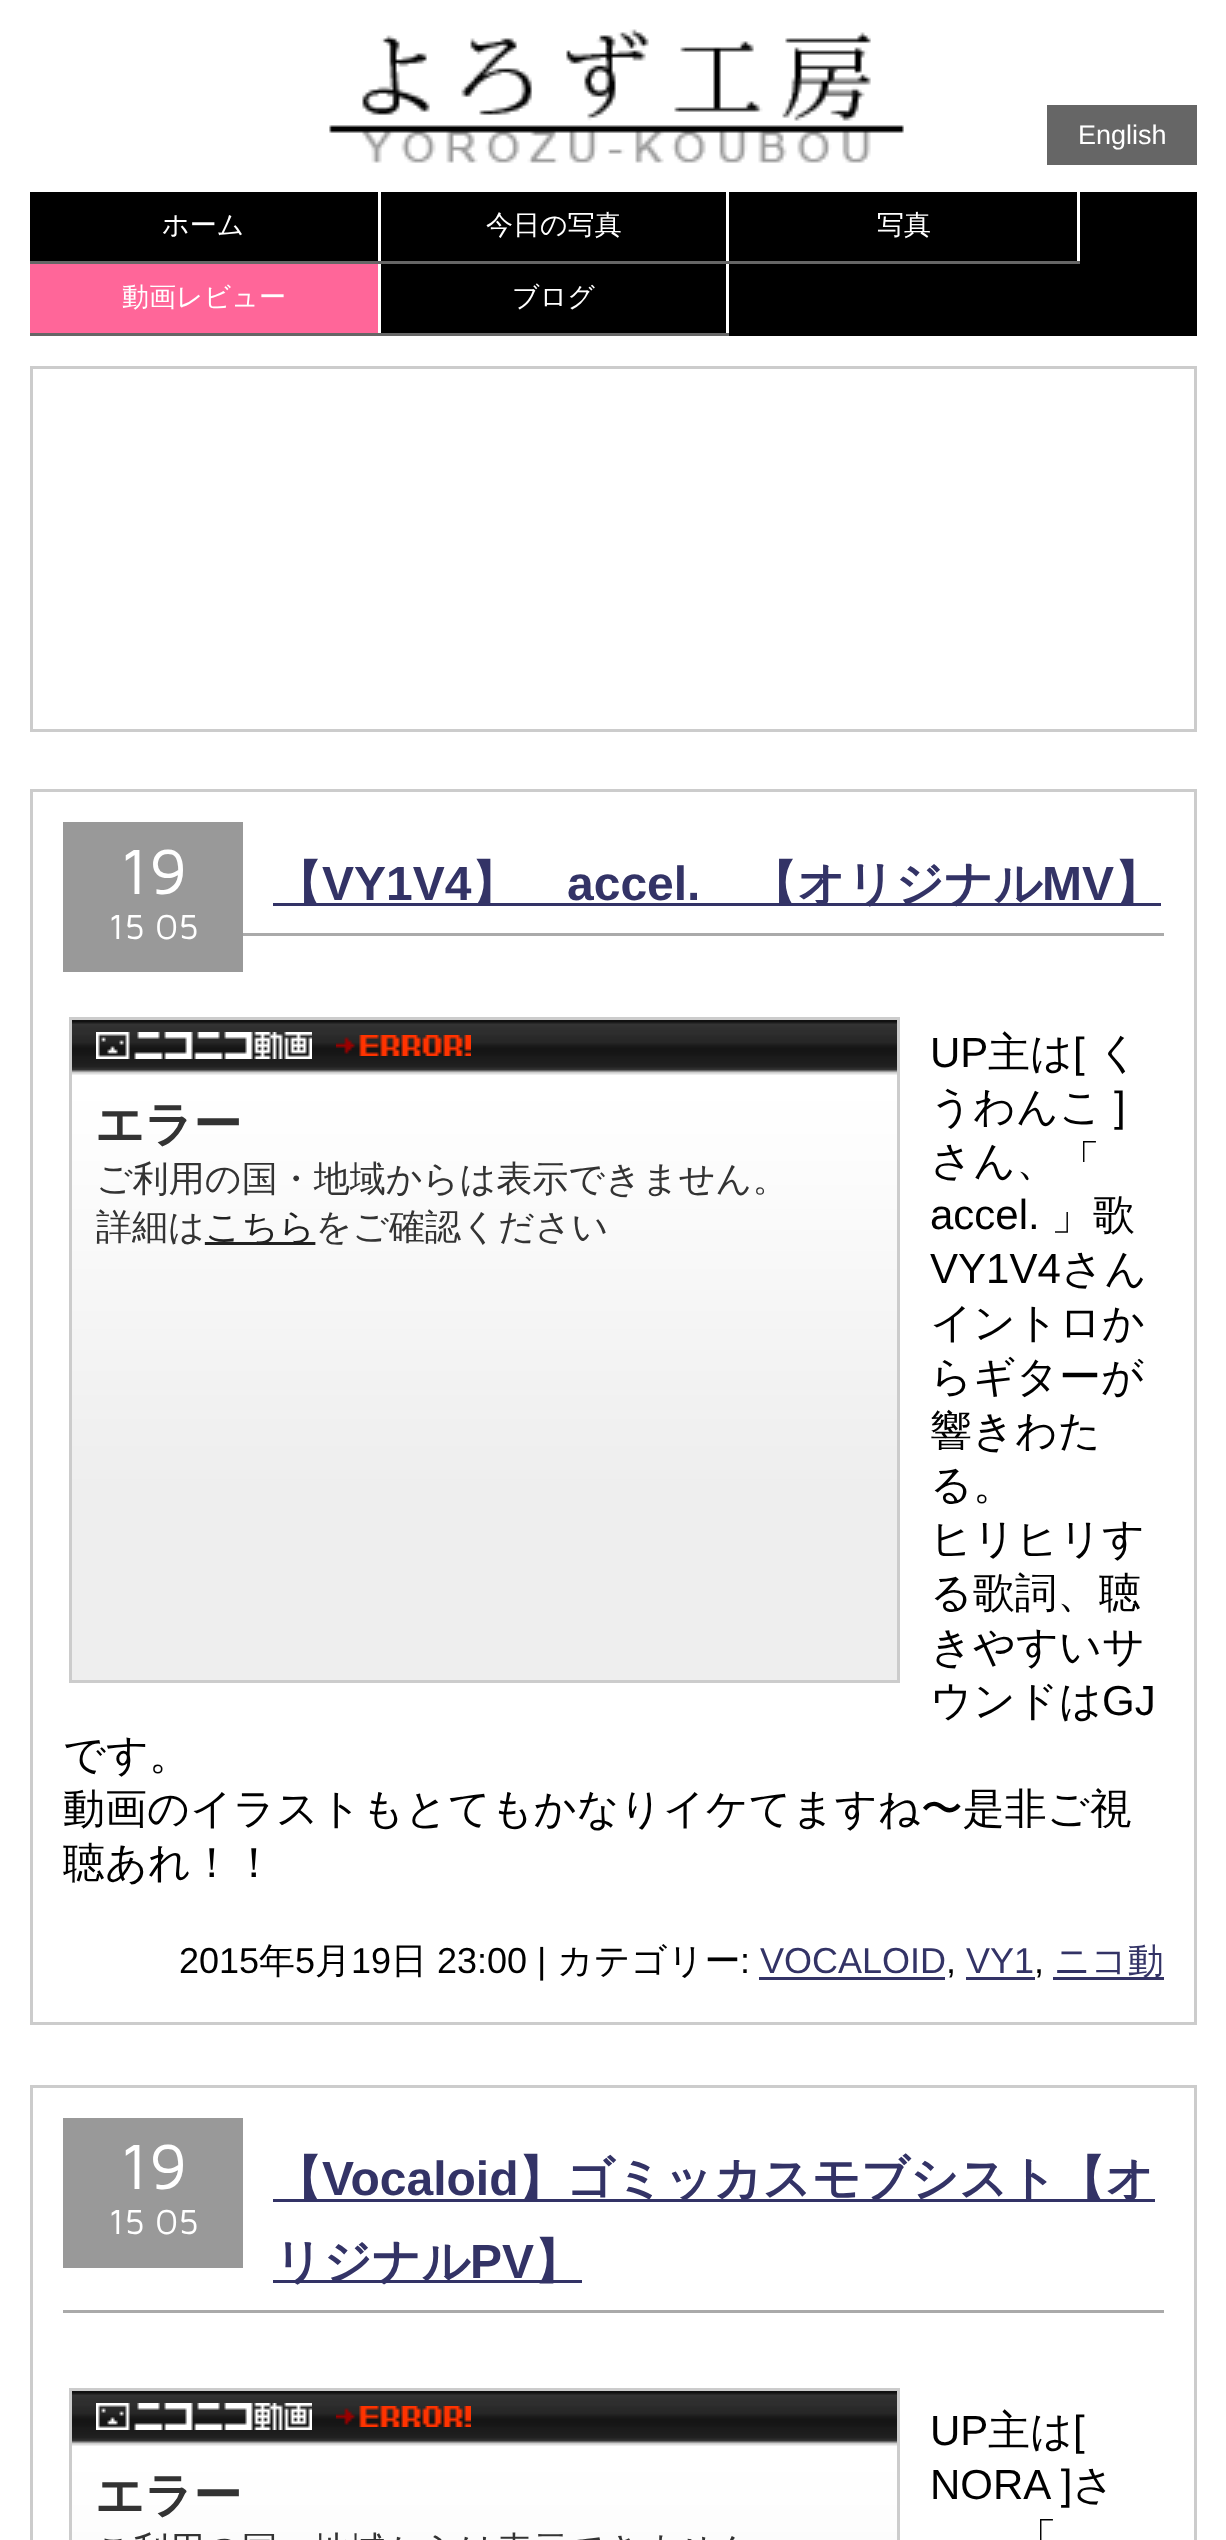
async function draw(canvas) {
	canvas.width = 1226;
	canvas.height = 2540;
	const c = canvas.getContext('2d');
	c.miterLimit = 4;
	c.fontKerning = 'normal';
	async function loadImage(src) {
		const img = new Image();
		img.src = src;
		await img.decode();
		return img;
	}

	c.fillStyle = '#fff';
	c.fillRect(0, 0, 1226, 2540);
	c.drawImage(await loadImage('img1.png'), 329, 29, 575, 134);
	c.fillStyle = '#666';
	c.fillRect(1047, 105, 150, 60);
	c.font = '27px Liberation Sans';
	c.fillStyle = '#fff';
	c.fillText('English', 1078, 144);
	for (const [x, y, w, h, color] of [
		[30, 192, 1167, 144, '#000'],
		[378, 192, 3, 144, '#fff'],
		[30, 261, 351, 3, '#666'],
	]) {
		c.fillStyle = color;
		c.fillRect(x, y, w, h);
	}
	c.font = '500 27px WenQuanYi Zen Hei';
	c.fillStyle = '#fff';
	c.fillText('ホーム', 162, 234);
	c.fillRect(726, 192, 3, 144);
	c.fillStyle = '#666';
	c.fillRect(381, 261, 348, 3);
	c.fillStyle = '#fff';
	c.fillText('今日の写真', 486, 234);
	c.fillRect(1077, 192, 3, 72);
	c.fillStyle = '#666';
	c.fillRect(729, 261, 351, 3);
	c.fillStyle = '#fff';
	c.fillText('写真', 877, 234);
	c.fillStyle = '#f69';
	c.fillRect(30, 264, 348, 69);
	c.fillStyle = '#666';
	c.fillRect(30, 333, 699, 3);
	c.fillStyle = '#fff';
	c.fillText('動画レビュー', 122, 306);
	c.fillText('ブログ', 512, 306);
	c.strokeStyle = '#ccc';
	c.lineWidth = 3;
	c.strokeRect(31.5, 367.5, 1164, 363);
	c.strokeRect(31.5, 790.5, 1164, 1233);
	c.fillStyle = '#999';
	c.fillRect(63, 822, 180, 150);
	c.font = '66px Maven Pro';
	c.fillStyle = '#fff';
	c.fillText('19', 119, 894);
	c.font = '36px Maven Pro';
	c.fillText('15 05', 108, 939);
	c.fillStyle = '#aaa';
	c.fillRect(243, 933, 921, 3);
	c.fillStyle = '#336';
	c.fillRect(273, 903, 888, 3);
	c.font = 'bold 48px WenQuanYi Zen Hei';
	c.fillText('【', 274, 900);
	c.font = 'bold 48px Liberation Sans';
	c.fillText('VY1V4', 322, 900);
	c.font = 'bold 48px WenQuanYi Zen Hei';
	c.fillText('】', 471, 900);
	c.font = 'bold 48px Liberation Sans';
	c.fillText('accel.', 567, 900);
	c.font = 'bold 48px WenQuanYi Zen Hei';
	c.fillText('【オリジナル', 749, 900);
	c.font = 'bold 48px Liberation Sans';
	c.fillText('MV', 1042, 900);
	c.font = 'bold 48px WenQuanYi Zen Hei';
	c.fillText('】', 1114, 900);
	c.strokeRect(70.5, 1018.5, 828, 663);
	c.drawImage(await loadImage('img2.png'), 72, 1020, 825, 660);
	c.font = '42px Liberation Sans';
	c.fillStyle = '#000';
	c.fillText('UP', 930, 1067);
	c.font = '500 42px WenQuanYi Zen Hei';
	c.fillText('主は', 988, 1067);
	c.font = '42px Liberation Sans';
	c.fillText('[', 1073, 1067);
	c.font = '500 42px WenQuanYi Zen Hei';
	c.fillText('く', 1097, 1067);
	c.fillText('うわんこ', 930, 1121);
	c.font = '42px Liberation Sans';
	c.fillText(']', 1114, 1121);
	c.font = '500 42px WenQuanYi Zen Hei';
	c.fillText('さん、「', 930, 1175);
	c.font = '42px Liberation Sans';
	c.fillText('accel.', 930, 1229);
	c.font = '500 42px WenQuanYi Zen Hei';
	c.fillText('」歌', 1051, 1229);
	c.font = '42px Liberation Sans';
	c.fillText('VY1V4', 930, 1283);
	c.font = '500 42px WenQuanYi Zen Hei';
	for (const [text, x, y] of [
		['さん', 1061, 1283],
		['イントロか', 930, 1337],
		['らギターが', 930, 1391],
		['響きわた', 930, 1445],
		['る。', 930, 1499],
		['ヒリヒリす', 930, 1553],
		['る歌詞、聴', 930, 1607],
		['きやすいサ', 930, 1661],
		['ウンドは', 930, 1715],
	]) {
		c.fillText(text, x, y);
	}
	c.font = '42px Liberation Sans';
	c.fillText('GJ', 1102, 1715);
	c.font = '500 42px WenQuanYi Zen Hei';
	for (const [text, x, y] of [
		['です。', 63, 1769],
		['動画のイラストもとてもかなりイケてますね〜是非ご視', 63, 1823],
		['聴あれ！！', 63, 1877],
	]) {
		c.fillText(text, x, y);
	}
	c.font = '36px Liberation Sans';
	c.fillText('2015', 179, 1973);
	c.font = '500 36px WenQuanYi Zen Hei';
	c.fillText('年', 259, 1973);
	c.font = '36px Liberation Sans';
	c.fillText('5', 295, 1973);
	c.font = '500 36px WenQuanYi Zen Hei';
	c.fillText('月', 315, 1973);
	c.font = '36px Liberation Sans';
	c.fillText('19', 351, 1973);
	c.font = '500 36px WenQuanYi Zen Hei';
	c.fillText('日', 391, 1973);
	c.font = '36px Liberation Sans';
	c.fillText('23:00 |', 437, 1973);
	c.font = '500 36px WenQuanYi Zen Hei';
	c.fillText('カテゴリー', 557, 1973);
	c.font = '36px Liberation Sans';
	c.fillText(':', 740, 1973);
	c.fillStyle = '#336';
	c.fillText('VOCALOID', 760, 1973);
	c.fillRect(759, 1977, 186, 3);
	c.fillStyle = '#000';
	c.fillText(',', 946, 1973);
	c.fillStyle = '#336';
	c.fillText('VY1', 966, 1973);
	c.fillRect(966, 1977, 69, 3);
	c.fillStyle = '#000';
	c.fillText(',', 1034, 1973);
	c.fillStyle = '#336';
	c.fillRect(1053, 1977, 111, 3);
	c.font = '500 36px WenQuanYi Zen Hei';
	c.fillText('ニコ動', 1054, 1973);
	c.strokeRect(31.5, 2086.5, 1164, 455);
	c.fillStyle = '#999';
	c.fillRect(63, 2118, 180, 150);
	c.font = '66px Maven Pro';
	c.fillStyle = '#fff';
	c.fillText('19', 119, 2189);
	c.font = '36px Maven Pro';
	c.fillText('15 05', 108, 2234);
	c.fillStyle = '#aaa';
	c.fillRect(63, 2310, 1101, 3);
	c.fillStyle = '#336';
	c.fillRect(273, 2199, 882, 3);
	c.font = 'bold 48px WenQuanYi Zen Hei';
	c.fillText('【', 274, 2195);
	c.font = 'bold 48px Liberation Sans';
	c.fillText('Vocaloid', 322, 2195);
	c.font = 'bold 48px WenQuanYi Zen Hei';
	c.fillText('】ゴミッカスモブシスト【オ', 518, 2195);
	c.fillRect(273, 2280, 309, 3);
	c.fillText('リジナル', 274, 2278);
	c.font = 'bold 48px Liberation Sans';
	c.fillText('PV', 470, 2278);
	c.font = 'bold 48px WenQuanYi Zen Hei';
	c.fillText('】', 534, 2278);
	c.strokeRect(70.5, 2389.5, 828, 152);
	c.drawImage(await loadImage('img3.png'), 72, 2391, 825, 149);
	c.font = '42px Liberation Sans';
	c.fillStyle = '#000';
	c.fillText('UP', 930, 2445);
	c.font = '500 42px WenQuanYi Zen Hei';
	c.fillText('主は', 988, 2445);
	c.font = '42px Liberation Sans';
	c.fillText('[', 1073, 2445);
	c.fillText('NORA ]', 930, 2499);
	c.font = '500 42px WenQuanYi Zen Hei';
	c.fillText('さ', 1072, 2499);
	c.wordSpacing = '-1px';
	c.fillText('「', 1015, 2553);
}

draw(document.querySelector('canvas'));
